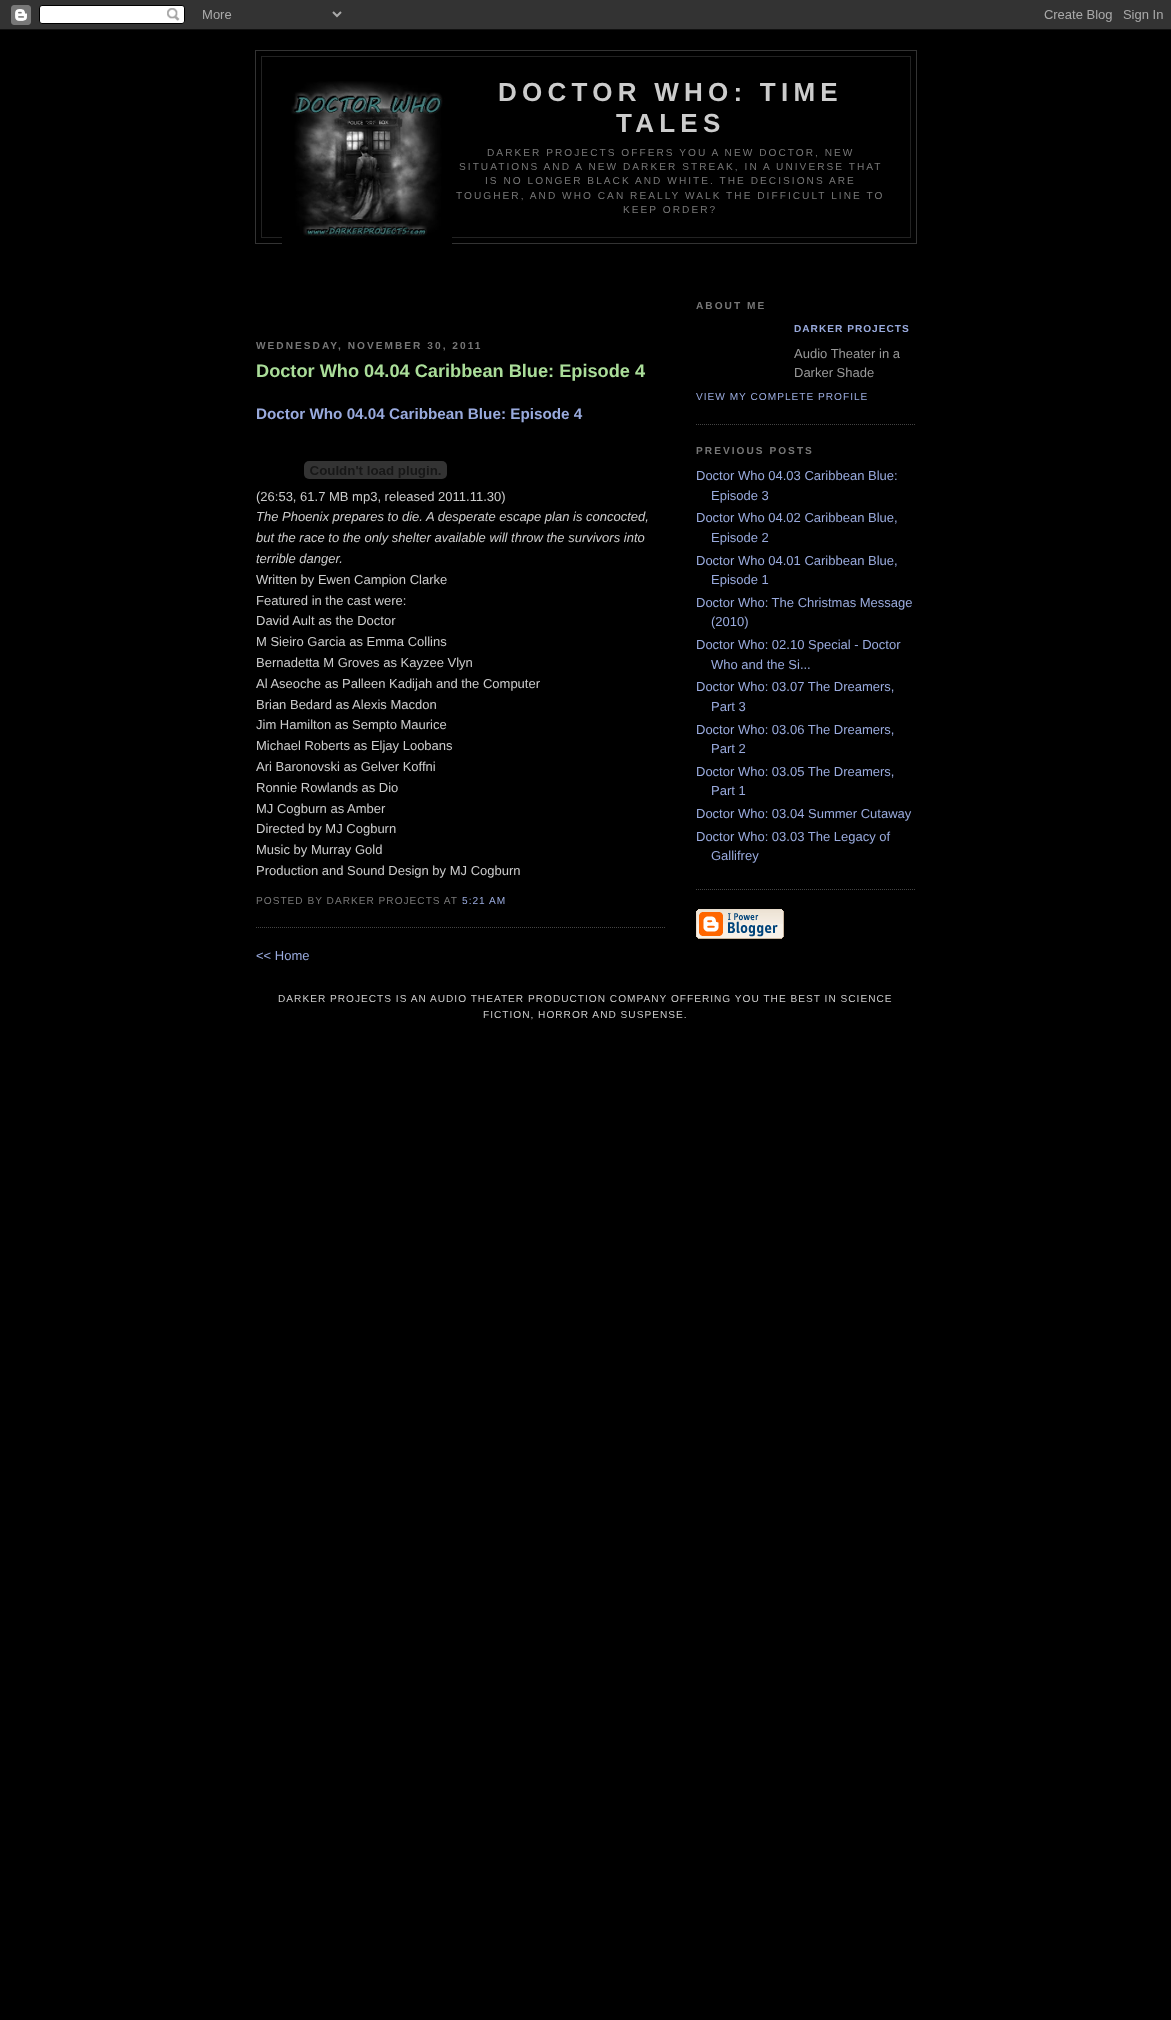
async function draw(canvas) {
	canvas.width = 1171;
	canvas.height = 2020;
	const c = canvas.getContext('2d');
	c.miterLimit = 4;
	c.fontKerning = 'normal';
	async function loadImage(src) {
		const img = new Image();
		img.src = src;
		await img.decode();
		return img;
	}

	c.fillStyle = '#000';
	c.fillRect(0, 0, 1171, 2020);
	c.drawImage(await loadImage('img1.png'), 0, 0, 1171, 30);
	c.strokeStyle = '#333';
	c.strokeRect(255.5, 50.5, 661, 193);
	for (const [x, y, w, h, color] of [
		[261, 56, 650, 1, '#222'],
		[910, 56, 1, 182, '#222'],
		[261, 56, 1, 90, '#222'],
		[261, 237, 650, 1, '#222'],
	]) {
		c.fillStyle = color;
		c.fillRect(x, y, w, h);
	}
	c.drawImage(await loadImage('img2.png'), 282, 81, 170, 163);
	c.letterSpacing = '5.25px';
	c.font = 'bold 26px Liberation Sans';
	c.fillStyle = '#ccc';
	c.fillText('DOCTOR WHO: TIME', 498, 101);
	c.fillText('TALES', 616, 132);
	c.fillStyle = '#222';
	c.fillRect(261, 146, 1, 92);
	c.letterSpacing = '2.03px';
	c.font = '10.15px Liberation Sans';
	c.fillStyle = '#777';
	for (const [text, x, y] of [
		['DARKER PROJECTS OFFERS YOU A NEW DOCTOR, NEW', 487, 156],
		['SITUATIONS AND A NEW DARKER STREAK, IN A UNIVERSE THAT', 459, 170],
		['IS NO LONGER BLACK AND WHITE. THE DECISIONS ARE', 485, 184],
		['TOUGHER, AND WHO CAN REALLY WALK THE DIFFICULT LINE TO', 456, 199],
		['KEEP ORDER?', 623, 213],
	]) {
		c.fillText(text, x, y);
	}
	c.font = 'bold 10.15px Liberation Sans';
	c.fillText('WEDNESDAY, NOVEMBER 30, 2011', 256, 349);
	c.beginPath();
	c.moveTo(256, 927.5);
	c.lineTo(666, 927.5);
	c.strokeStyle = '#444';
	c.setLineDash([1, 1]);
	c.stroke();
	c.letterSpacing = '0px';
	c.font = 'bold 18.2px Liberation Sans';
	c.fillStyle = '#ad9';
	c.fillText('Doctor Who 04.04 Caribbean Blue: Episode 4', 256, 377);
	c.font = 'bold 15.25px Liberation Sans';
	c.fillStyle = '#9ad';
	c.fillText('Doctor Who 04.04 Caribbean Blue: Episode 4', 256, 419);
	c.drawImage(await loadImage('img3.png'), 304, 461, 143, 18);
	c.font = '13px Liberation Sans';
	c.fillStyle = '#ccc';
	c.fillText('(26:53, 61.7 MB mp3, released 2011.11.30)', 256, 501);
	c.font = 'italic 13px Liberation Sans';
	for (const [text, x, y] of [
		['The Phoenix prepares to die. A desperate escape plan is concocted,', 256, 521],
		['but the race to the only shelter available will throw the survivors into', 256, 542],
		['terrible danger.', 256, 563],
	]) {
		c.fillText(text, x, y);
	}
	c.font = '13px Liberation Sans';
	for (const [text, x, y] of [
		['Written by Ewen Campion Clarke', 256, 584],
		['Featured in the cast were:', 256, 605],
		['David Ault as the Doctor', 256, 625],
		['M Sieiro Garcia as Emma Collins', 256, 646],
		['Bernadetta M Groves as Kayzee Vlyn', 256, 667],
		['Al Aseoche as Palleen Kadijah and the Computer', 256, 688],
		['Brian Bedard as Alexis Macdon', 256, 709],
		['Jim Hamilton as Sempto Maurice', 256, 729],
		['Michael Roberts as Eljay Loobans', 256, 750],
		['Ari Baronovski as Gelver Koffni', 256, 771],
		['Ronnie Rowlands as Dio', 256, 792],
		['MJ Cogburn as Amber', 256, 813],
		['Directed by MJ Cogburn', 256, 833],
		['Music by Murray Gold', 256, 854],
		['Production and Sound Design by MJ Cogburn', 256, 875],
	]) {
		c.fillText(text, x, y);
	}
	c.letterSpacing = '1px';
	c.font = '10.15px Liberation Sans';
	c.fillStyle = '#777';
	c.fillText('POSTED BY DARKER PROJECTS AT', 256, 904);
	c.fillStyle = '#9ad';
	c.fillText('5:21 AM', 462, 904);
	c.letterSpacing = '0px';
	c.font = '13px Liberation Sans';
	c.fillText('<< Home', 256, 960);
	c.beginPath();
	c.moveTo(696, 424.5);
	c.lineTo(916, 424.5);
	c.stroke();
	c.letterSpacing = '2.03px';
	c.font = 'bold 10.15px Liberation Sans';
	c.fillStyle = '#777';
	c.fillText('ABOUT ME', 696, 309);
	c.letterSpacing = '1px';
	c.fillStyle = '#9ad';
	c.fillText('DARKER PROJECTS', 794, 332);
	c.letterSpacing = '0px';
	c.font = '13px Liberation Sans';
	c.fillStyle = '#999';
	c.fillText('Audio Theater in a', 794, 358);
	c.fillText('Darker Shade', 794, 377);
	c.letterSpacing = '1px';
	c.font = '10.15px Liberation Sans';
	c.fillStyle = '#9ad';
	c.fillText('VIEW MY COMPLETE PROFILE', 696, 400);
	c.letterSpacing = '2.03px';
	c.font = 'bold 10.15px Liberation Sans';
	c.fillStyle = '#777';
	c.fillText('PREVIOUS POSTS', 696, 454);
	c.beginPath();
	c.moveTo(696, 889.5);
	c.lineTo(916, 889.5);
	c.stroke();
	c.letterSpacing = '0px';
	c.font = '13px Liberation Sans';
	c.fillStyle = '#9ad';
	for (const [text, x, y] of [
		['Doctor Who 04.03 Caribbean Blue:', 696, 480],
		['Episode 3', 711, 500],
		['Doctor Who 04.02 Caribbean Blue,', 696, 522],
		['Episode 2', 711, 542],
		['Doctor Who 04.01 Caribbean Blue,', 696, 565],
		['Episode 1', 711, 584],
		['Doctor Who: The Christmas Message', 696, 607],
		['(2010)', 711, 626],
		['Doctor Who: 02.10 Special - Doctor', 696, 649],
		['Who and the Si...', 711, 669],
		['Doctor Who: 03.07 The Dreamers,', 696, 691],
		['Part 3', 711, 711],
		['Doctor Who: 03.06 The Dreamers,', 696, 734],
		['Part 2', 711, 753],
		['Doctor Who: 03.05 The Dreamers,', 696, 776],
		['Part 1', 711, 795],
		['Doctor Who: 03.04 Summer Cutaway', 696, 818],
		['Doctor Who: 03.03 The Legacy of', 696, 841],
		['Gallifrey', 711, 860],
	]) {
		c.fillText(text, x, y);
	}
	c.drawImage(await loadImage('img4.png'), 696, 909, 88, 30);
	c.letterSpacing = '1px';
	c.font = '10.15px Liberation Sans';
	c.fillStyle = '#ccc';
	c.fillText('DARKER PROJECTS IS AN AUDIO THEATER PRODUCTION COMPANY OFFERING YOU THE BEST IN SCIENCE', 278, 1002);
	c.fillText('FICTION, HORROR AND SUSPENSE.', 483, 1018);
}

draw(document.querySelector('canvas'));
